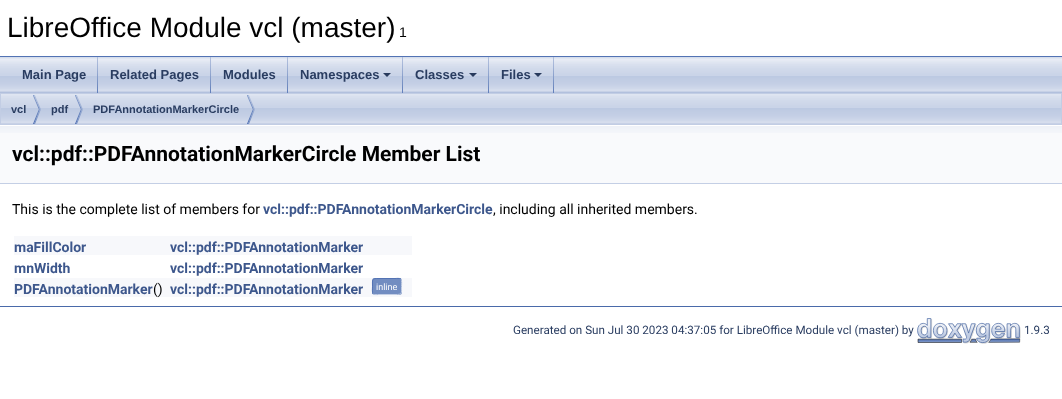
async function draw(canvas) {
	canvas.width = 1062;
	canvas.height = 399;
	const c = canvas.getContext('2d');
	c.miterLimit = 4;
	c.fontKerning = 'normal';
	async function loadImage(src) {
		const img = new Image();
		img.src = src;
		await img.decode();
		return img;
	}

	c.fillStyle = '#fff';
	c.fillRect(0, 0, 1062, 399);
	c.fillStyle = '#5373b4';
	c.fillRect(0, 56, 1062, 1);
	c.font = '28px Liberation Sans';
	c.fillStyle = '#000';
	c.fillText('LibreOffice Module vcl (master)', 7, 37);
	c.font = '14px Liberation Sans';
	c.fillText('1', 399, 37);
	c.drawImage(await loadImage('img1.png'), 0, 57, 1062, 36);
	c.drawImage(await loadImage('img2.png'), 97, 57, 1, 36);
	c.font = 'bold 13px Liberation Sans';
	c.fillStyle = '#2a3d61';
	c.fillText('Main Page', 22, 79);
	c.drawImage(await loadImage('img2.png'), 210, 57, 1, 36);
	c.fillText('Related Pages', 110, 79);
	c.drawImage(await loadImage('img2.png'), 287, 57, 1, 36);
	c.fillText('Modules', 223, 79);
	c.drawImage(await loadImage('img2.png'), 402, 57, 1, 36);
	c.fillText('Namespaces', 300, 79);
	c.fillStyle = '#283a5d';
	c.beginPath();
	c.moveTo(383, 73);
	c.lineTo(391, 73);
	c.lineTo(387, 77);
	c.closePath();
	c.fill();
	c.drawImage(await loadImage('img2.png'), 488, 57, 1, 36);
	c.fillStyle = '#2a3d61';
	c.fillText('Classes', 415, 79);
	c.fillStyle = '#283a5d';
	c.beginPath();
	c.moveTo(469, 73);
	c.lineTo(477, 73);
	c.lineTo(473, 77);
	c.closePath();
	c.fill();
	c.drawImage(await loadImage('img2.png'), 553, 57, 1, 36);
	c.fillStyle = '#2a3d61';
	c.fillText('Files', 501, 79);
	c.fillStyle = '#283a5d';
	c.beginPath();
	c.moveTo(534, 73);
	c.lineTo(542, 73);
	c.lineTo(538, 77);
	c.closePath();
	c.fill();
	c.drawImage(await loadImage('img3.png'), 1, 94, 1060, 30);
	c.strokeStyle = '#c2cde4';
	c.strokeRect(0.5, 93.5, 1061, 31);
	c.drawImage(await loadImage('img4.png'), 33, 95, 8, 29);
	c.font = 'bold 11px Liberation Sans';
	c.fillStyle = '#2a3d61';
	c.fillText('vcl', 11, 113);
	c.drawImage(await loadImage('img4.png'), 75, 95, 8, 29);
	c.fillText('pdf', 51, 113);
	c.drawImage(await loadImage('img4.png'), 247, 95, 8, 29);
	c.fillText('PDFAnnotationMarkerCircle', 93, 113);
	c.fillStyle = '#f9fafc';
	c.fillRect(0, 133, 1062, 50);
	c.drawImage(await loadImage('img5.png'), 0, 125, 1062, 8);
	c.fillStyle = '#c4cfe5';
	c.fillRect(0, 183, 1062, 1);
	c.font = 'bold 21px Roboto';
	c.fillStyle = '#000';
	c.fillText('vcl::pdf::PDFAnnotationMarkerCircle Member List', 12, 161);
	c.font = '14px Roboto';
	c.fillText('This is the complete list of members for', 12, 214);
	c.font = 'bold 14px Roboto';
	c.fillStyle = '#3d578c';
	c.fillText('vcl::pdf::PDFAnnotationMarkerCircle', 263, 214);
	c.font = '14px Roboto';
	c.fillStyle = '#000';
	c.fillText(', including all inherited members.', 493, 214);
	c.fillStyle = '#f7f8fb';
	c.fillRect(14, 236, 398, 19);
	c.font = 'bold 14px Roboto';
	c.fillStyle = '#3d578c';
	for (const [text, x, y] of [
		['maFillColor', 14, 252],
		['vcl::pdf::PDFAnnotationMarker', 170, 252],
		['mnWidth', 14, 273],
		['vcl::pdf::PDFAnnotationMarker', 170, 273],
	]) {
		c.fillText(text, x, y);
	}
	c.fillStyle = '#f7f8fb';
	c.fillRect(14, 278, 398, 19);
	c.fillStyle = '#3d578c';
	c.fillText('PDFAnnotationMarker', 14, 294);
	c.font = '14px Roboto';
	c.fillStyle = '#000';
	c.fillText('()', 153, 294);
	c.font = 'bold 14px Roboto';
	c.fillStyle = '#3d578c';
	c.fillText('vcl::pdf::PDFAnnotationMarker', 170, 294);
	c.fillStyle = '#728dc1';
	c.beginPath();
	c.roundRect(372, 278, 30, 17, 3);
	c.fill();
	c.beginPath();
	c.moveTo(401, 279);
	c.bezierCurveTo(402, 280.5, 401.5, 285, 401.5, 286.5);
	c.bezierCurveTo(401.5, 294, 402.5, 294.5, 395, 294.5);
	c.lineTo(379, 294.5);
	c.bezierCurveTo(377.5, 294.5, 374.5, 295, 373, 294);
	c.strokeStyle = '#c4cfe5';
	c.stroke();
	c.beginPath();
	c.moveTo(373, 294);
	c.bezierCurveTo(372, 292.5, 372.5, 288, 372.5, 286.5);
	c.bezierCurveTo(372.5, 279, 371.5, 278.5, 379, 278.5);
	c.lineTo(395, 278.5);
	c.bezierCurveTo(396.5, 278.5, 399.5, 278, 401, 279);
	c.strokeStyle = '#5373b4';
	c.stroke();
	c.font = '9px Roboto';
	c.fillStyle = '#fff';
	c.fillText('inline', 376, 290);
	c.fillStyle = '#4a6aaa';
	c.fillRect(0, 306, 1062, 1);
	c.font = '11.65px Roboto';
	c.fillStyle = '#2a3d61';
	c.fillText('Generated on Sun Jul 30 2023 04:37:05 for LibreOffice Module vcl (master) by', 513, 334);
	c.drawImage(await loadImage('img6.png'), 917, 318, 104, 26);
	c.fillText('1.9.3', 1024, 334);
}

draw(document.querySelector('canvas'));
